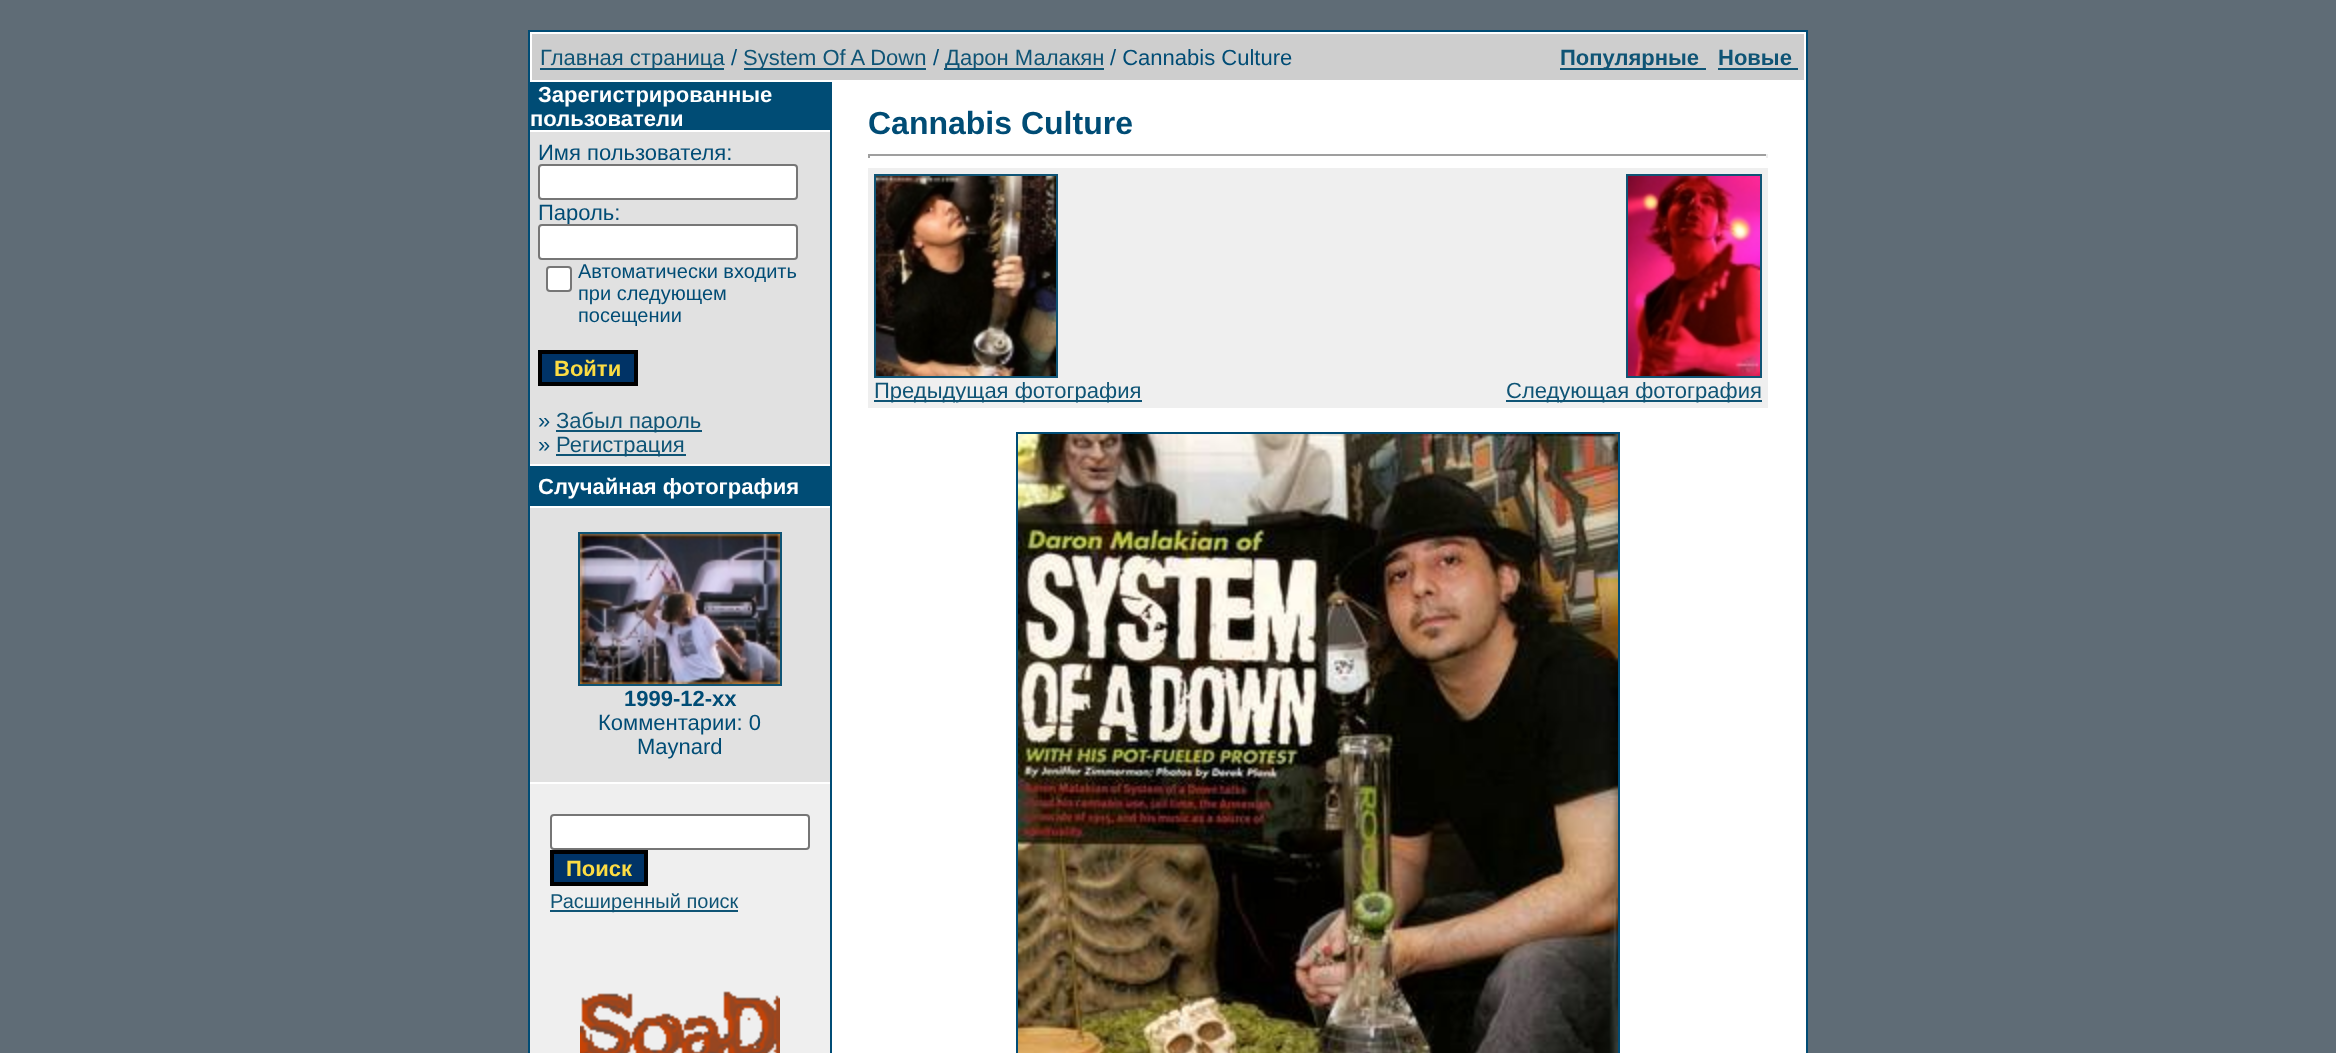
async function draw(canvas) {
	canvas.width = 2336;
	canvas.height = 1053;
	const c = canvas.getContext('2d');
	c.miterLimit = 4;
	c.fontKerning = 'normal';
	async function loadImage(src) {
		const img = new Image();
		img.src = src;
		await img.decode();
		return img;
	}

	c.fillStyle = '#5f6c76';
	c.fillRect(0, 0, 2336, 1053);
	for (const [x, y, w, h, color] of [
		[528, 30, 1280, 1023, '#004c75'],
		[530, 32, 1276, 1021, '#fff'],
		[532, 34, 1272, 46, '#cecece'],
		[540, 68, 184, 2, '#0f5475'],
	]) {
		c.fillStyle = color;
		c.fillRect(x, y, w, h);
	}
	c.font = '22px Liberation Sans';
	c.fillText('Главная страница', 540, 65);
	c.fillStyle = '#004c75';
	c.fillText('/', 731, 65);
	c.fillStyle = '#0f5475';
	c.fillRect(744, 68, 182, 2);
	c.fillText('System Of A Down', 743, 65);
	c.fillStyle = '#004c75';
	c.fillText('/', 933, 65);
	c.fillStyle = '#0f5475';
	c.fillRect(944, 68, 160, 2);
	c.fillText('Дарон Малакян', 945, 65);
	c.fillStyle = '#004c75';
	c.fillText('/ Cannabis Culture', 1110, 65);
	c.fillStyle = '#0f5475';
	c.fillRect(1560, 68, 146, 2);
	c.font = 'bold 22px Liberation Sans';
	c.fillText('Популярные', 1560, 65);
	c.fillText('Новые', 1718, 65);
	for (const [x, y, w, h, color] of [
		[1718, 68, 80, 2, '#0f5475'],
		[530, 784, 300, 269, '#efefef'],
		[530, 82, 300, 48, '#004c75'],
	]) {
		c.fillStyle = color;
		c.fillRect(x, y, w, h);
	}
	c.fillStyle = '#fff';
	c.fillText('Зарегистрированные', 538, 102);
	c.fillText('пользователи', 530, 126);
	c.fillStyle = '#e1e1e1';
	c.fillRect(530, 132, 300, 332);
	c.font = '22px Liberation Sans';
	c.fillStyle = '#004c75';
	c.fillText('Имя пользователя:', 538, 160);
	c.fillStyle = '#fff';
	c.beginPath();
	c.roundRect(539, 165, 258, 34, 3);
	c.fill();
	c.strokeStyle = '#767676';
	c.lineWidth = 2;
	c.stroke();
	c.fillStyle = '#004c75';
	c.fillText('Пароль:', 538, 220);
	c.fillStyle = '#fff';
	c.beginPath();
	c.roundRect(539, 225, 258, 34, 3);
	c.fill();
	c.stroke();
	c.beginPath();
	c.roundRect(547, 267, 24, 24, 3);
	c.fill();
	c.stroke();
	c.font = '20px Liberation Sans';
	c.fillStyle = '#004c75';
	for (const [text, x, y] of [
		['Автоматически входить', 578, 278],
		['при следующем', 578, 300],
		['посещении', 578, 322],
	]) {
		c.fillText(text, x, y);
	}
	c.fillStyle = '#036';
	c.beginPath();
	c.rect(540, 352, 96, 32);
	c.fill();
	c.strokeStyle = '#000';
	c.lineWidth = 4;
	c.stroke();
	c.font = 'bold 22px Liberation Sans';
	c.fillStyle = '#fcdc43';
	c.fillText('Войти', 554, 376);
	c.font = '22px Liberation Sans';
	c.fillStyle = '#004c75';
	c.fillText('»', 538, 428);
	c.fillStyle = '#0f5475';
	c.fillRect(556, 430, 146, 2);
	c.fillText('Забыл пароль', 556, 428);
	c.fillStyle = '#004c75';
	c.fillText('»', 538, 452);
	c.fillStyle = '#0f5475';
	c.fillRect(556, 454, 130, 2);
	c.fillText('Регистрация', 556, 452);
	c.fillStyle = '#004c75';
	c.fillRect(530, 466, 300, 40);
	c.font = 'bold 22px Liberation Sans';
	c.fillStyle = '#fff';
	c.fillText('Случайная фотография', 538, 494);
	c.fillStyle = '#e1e1e1';
	c.fillRect(530, 508, 300, 274);
	c.strokeStyle = '#0f5475';
	c.lineWidth = 2;
	c.strokeRect(579, 533, 202, 152);
	c.drawImage(await loadImage('img1.png'), 580, 534, 200, 150);
	c.fillStyle = '#004c75';
	c.fillText('1999-12-xx', 624, 706);
	c.font = '22px Liberation Sans';
	c.fillText('Комментарии: 0', 598, 730);
	c.fillText('Maynard', 637, 754);
	c.fillStyle = '#fff';
	c.beginPath();
	c.roundRect(551, 815, 258, 34, 3);
	c.fill();
	c.strokeStyle = '#767676';
	c.stroke();
	c.fillStyle = '#036';
	c.beginPath();
	c.rect(552, 852, 94, 32);
	c.fill();
	c.strokeStyle = '#000';
	c.lineWidth = 4;
	c.stroke();
	c.font = 'bold 22px Liberation Sans';
	c.fillStyle = '#fcdc43';
	c.fillText('Поиск', 566, 876);
	c.fillStyle = '#0f5475';
	c.fillRect(550, 910, 188, 2);
	c.font = '20px Liberation Sans';
	c.fillText('Расширенный поиск', 550, 908);
	c.drawImage(await loadImage('img2.png'), 580, 991, 200, 62);
	c.fillStyle = '#004c75';
	c.fillRect(830, 82, 2, 971);
	c.font = 'bold 32px Liberation Sans';
	c.fillText('Cannabis Culture', 868, 134);
	for (const [x, y, w, h, color] of [
		[868, 154, 900, 2, '#9f9f9f'],
		[1766, 154, 2, 4, '#eee'],
		[868, 154, 2, 4, '#9f9f9f'],
		[868, 168, 900, 240, '#efefef'],
	]) {
		c.fillStyle = color;
		c.fillRect(x, y, w, h);
	}
	c.strokeStyle = '#0f5475';
	c.lineWidth = 2;
	c.strokeRect(875, 175, 182, 202);
	c.drawImage(await loadImage('img3.png'), 876, 176, 180, 200);
	c.fillStyle = '#0f5475';
	c.fillRect(874, 400, 268, 2);
	c.font = '22px Liberation Sans';
	c.fillText('Предыдущая фотография', 874, 398);
	c.strokeRect(1627, 175, 134, 202);
	c.drawImage(await loadImage('img4.png'), 1628, 176, 132, 200);
	c.fillRect(1506, 400, 256, 2);
	c.fillText('Следующая фотография', 1506, 398);
	c.strokeStyle = '#004c75';
	c.strokeRect(1017, 433, 602, 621);
	c.drawImage(await loadImage('img5.png'), 1018, 434, 600, 619);
}

draw(document.querySelector('canvas'));
